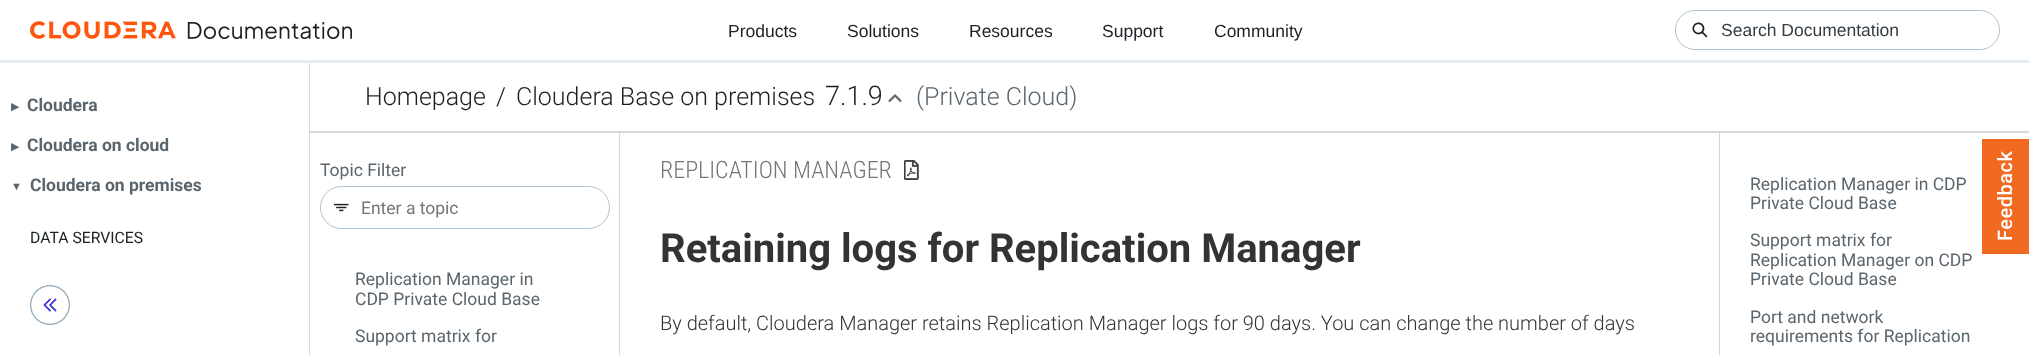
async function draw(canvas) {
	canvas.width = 2029;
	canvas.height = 355;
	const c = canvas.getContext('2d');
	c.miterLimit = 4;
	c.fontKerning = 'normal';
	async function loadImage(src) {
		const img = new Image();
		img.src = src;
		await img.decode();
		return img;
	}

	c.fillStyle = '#fff';
	c.fillRect(0, 0, 2029, 355);
	c.fillStyle = '#e5ecf1';
	c.fillRect(0, 60, 2029, 3);
	c.drawImage(await loadImage('img1.png'), 30, 21, 322, 18);
	c.font = '17.5px Liberation Sans';
	c.fillStyle = '#1a2024';
	for (const [text, x, y] of [
		['Products', 728, 37],
		['Solutions', 847, 37],
		['Resources', 969, 37],
		['Support', 1102, 37],
		['Community', 1214, 37],
	]) {
		c.fillText(text, x, y);
	}
	c.beginPath();
	c.roundRect(1675.5, 10.5, 324, 39, 19.5);
	c.strokeStyle = '#afc4d2';
	c.stroke();
	c.drawImage(await loadImage('img2.png'), 1692, 22, 16, 16);
	c.fillStyle = '#333d43';
	c.fillText('Search Documentation', 1721, 36);
	c.fillStyle = '#d6d8db';
	c.fillRect(309, 63, 1, 292);
	c.font = '11px DejaVu Sans';
	c.fillStyle = '#5a656d';
	c.fillText('▶︎', 11, 110);
	c.font = 'bold 17.5px Roboto';
	c.fillText('Cloudera', 27, 111);
	c.font = '11px DejaVu Sans';
	c.fillText('▶︎', 11, 150);
	c.font = 'bold 17.5px Roboto';
	c.fillText('Cloudera on cloud', 27, 151);
	c.font = '11px Liberation Sans';
	c.fillText('▼', 11, 190);
	c.font = 'bold 17.5px Roboto';
	c.fillText('Cloudera on premises', 30, 191);
	c.font = '15.75px Roboto';
	c.fillStyle = '#1a2024';
	c.fillText('DATA SERVICES', 30, 243);
	c.drawImage(await loadImage('img3.png'), 30, 285, 40, 40);
	c.save();
	c.beginPath();
	c.rect(310, 131, 310, 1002);
	c.clip();
	c.fillStyle = '#d6d8db';
	c.beginPath();
	c.moveTo(186, 8);
	c.lineTo(744, 8);
	c.lineTo(744, 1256);
	c.lineTo(186, 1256);
	c.closePath();
	c.moveTo(309, 132);
	c.lineTo(619, 132);
	c.lineTo(619, 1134);
	c.lineTo(309, 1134);
	c.closePath();
	c.fill('evenodd');
	c.restore();
	c.fillStyle = '#d6d8db';
	c.fillRect(1719, 131, 1, 224);
	c.fillRect(310, 131, 1719, 2);
	c.font = '300 25px Roboto';
	c.fillStyle = '#1a2024';
	for (const [text, x, y] of [
		['Homepage', 365, 105],
		['/', 496, 105],
		['Cloudera Base on premises', 516, 105],
	]) {
		c.fillText(text, x, y);
	}
	c.font = '300 27px Roboto';
	c.fillText('7.1.9', 825, 105);
	c.drawImage(await loadImage('img4.png'), 888, 94, 14, 8);
	c.font = '300 25px Roboto';
	c.fillStyle = '#5a656d';
	c.fillText('(Private Cloud)', 916, 105);
	c.fillStyle = '#f26922';
	c.fillRect(1982, 139, 47, 115);
	c.letterSpacing = '0.5px';
	c.font = '500 20px Roboto';
	c.fillStyle = '#fff';
	c.save();
	c.translate(2012, 241);
	c.rotate(-90 * Math.PI / 180);
	c.fillText('Feedback', 0, 0);
	c.restore();
	c.letterSpacing = '0px';
	c.font = '17.5px Roboto';
	c.fillStyle = '#5a656d';
	c.fillText('Topic Filter', 320, 176);
	c.beginPath();
	c.roundRect(320.5, 186.5, 289, 42, 21);
	c.stroke();
	c.drawImage(await loadImage('img5.png'), 333, 203, 16, 9);
	c.fillStyle = '#757575';
	c.fillText('Enter a topic', 361, 214);
	c.fillStyle = '#5a656d';
	for (const [text, x, y] of [
		['Replication Manager in', 355, 285],
		['CDP Private Cloud Base', 355, 305],
		['Support matrix for', 355, 342],
	]) {
		c.fillText(text, x, y);
	}
	c.font = '300 24px Roboto Condensed';
	c.fillStyle = '#757575';
	c.fillText('REPLICATION MANAGER', 660, 178);
	c.drawImage(await loadImage('img6.png'), 904, 160, 15, 20);
	c.font = 'bold 40px Roboto';
	c.fillStyle = '#333';
	c.fillText('Retaining logs for Replication Manager', 660, 262);
	c.font = '300 20px Roboto';
	c.fillText('By default, Cloudera Manager retains Replication Manager logs for 90 days. You can change the number of days', 660, 330);
	c.font = '17.5px Roboto';
	c.fillStyle = '#5a656d';
	for (const [text, x, y] of [
		['Replication Manager in CDP', 1750, 190],
		['Private Cloud Base', 1750, 209],
		['Support matrix for', 1750, 246],
		['Replication Manager on CDP', 1750, 266],
		['Private Cloud Base', 1750, 285],
		['Port and network', 1750, 323],
		['requirements for Replication', 1750, 342],
	]) {
		c.fillText(text, x, y);
	}
}

draw(document.querySelector('canvas'));
